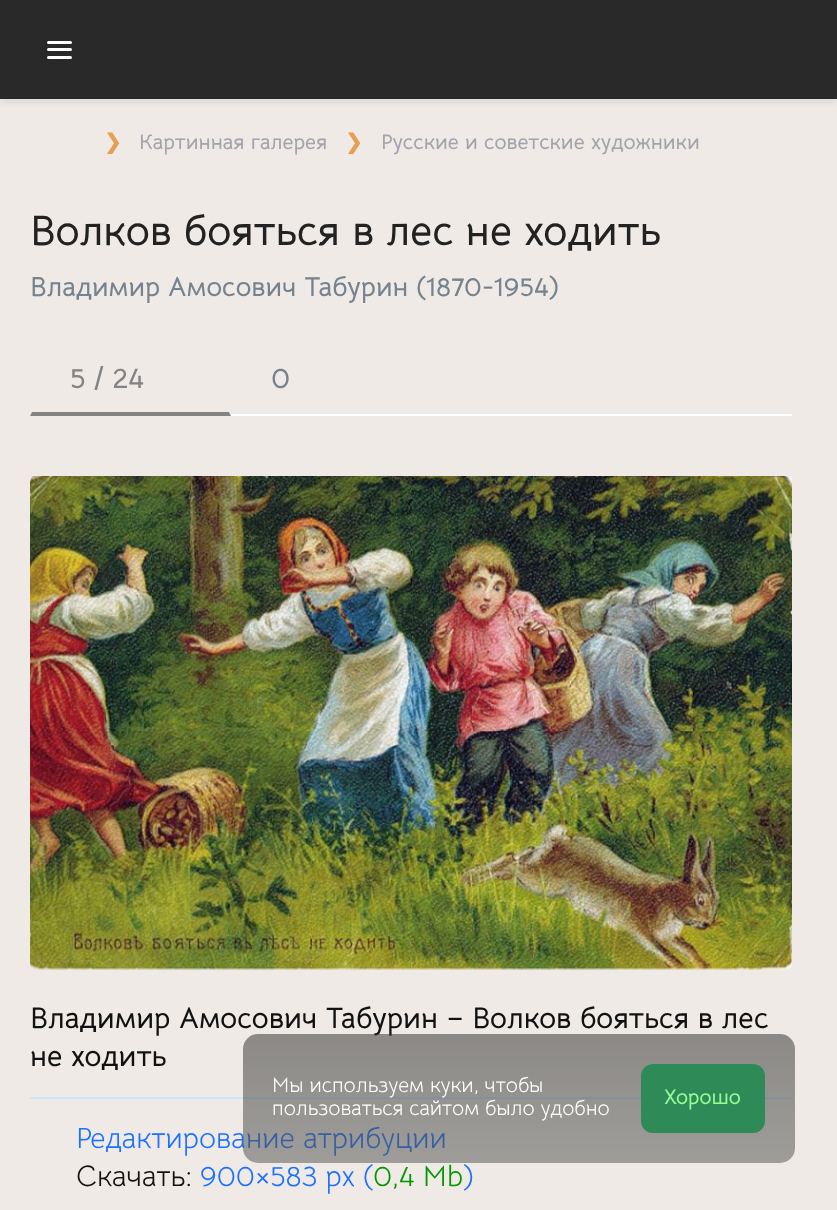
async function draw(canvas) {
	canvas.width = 837;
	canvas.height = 1210;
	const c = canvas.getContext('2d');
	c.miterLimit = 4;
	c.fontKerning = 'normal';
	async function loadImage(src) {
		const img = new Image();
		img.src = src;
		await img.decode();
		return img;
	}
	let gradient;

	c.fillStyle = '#efeae5';
	c.fillRect(0, 0, 837, 1210);
	c.fillStyle = '#00000014';
	c.filter = 'blur(3px)';
	c.beginPath();
	c.rect(0, 3, 837, 99);
	c.fill();
	c.filter = 'none';
	c.fillStyle = '#292929';
	c.fillRect(0, 0, 837, 99);
	c.fillStyle = '#fff';
	c.beginPath();
	c.roundRect(47, 41, 25, 3, 1.5);
	c.fill();
	c.beginPath();
	c.roundRect(47, 48, 25, 3, 1.5);
	c.fill();
	c.beginPath();
	c.roundRect(47, 56, 25, 3, 1.5);
	c.fill();
	c.font = 'bold 21px DejaVu Sans';
	c.fillStyle = '#e5a055';
	c.fillText('❯', 104, 149);
	c.font = 'bold 21px Bellota Text';
	c.fillStyle = '#a3a3ad';
	c.fillText('Картинная галерея', 139, 149);
	c.font = 'bold 21px DejaVu Sans';
	c.fillStyle = '#e5a055';
	c.fillText('❯', 345, 149);
	c.font = 'bold 21px Bellota Text';
	c.fillStyle = '#a3a3ad';
	c.fillText('Русские и советские художники', 381, 149);
	c.font = 'bold 42px Bellota Text';
	c.fillStyle = '#222';
	c.fillText('Волков бояться в лес не ходить', 30, 245);
	c.font = 'bold 27.25px Bellota Text';
	c.fillStyle = '#76838f';
	c.fillText('Владимир Амосович Табурин (1870-1954)', 30, 296);
	c.fillStyle = '#fff';
	c.fillRect(30, 414, 762, 2);
	c.fillStyle = '#838383';
	c.beginPath();
	c.moveTo(231, 416);
	c.lineTo(30, 416);
	c.lineTo(32, 412);
	c.lineTo(229, 412);
	c.closePath();
	c.fill();
	c.font = 'bold 29.4px Bellota Text';
	c.fillText('5 / 24', 70, 388);
	c.fillStyle = '#76838f';
	c.fillText('0', 271, 388);
	c.drawImage(await loadImage('img1.png'), 30, 476, 762, 494);
	c.fillStyle = '#111';
	c.fillText('Владимир Амосович Табурин – Волков бояться в лес', 30, 1028);
	c.fillText('не ходить', 30, 1066);
	c.fillStyle = '#c9e5ff';
	c.fillRect(30, 1097, 762, 2);
	c.font = '29.4px Bellota Text';
	c.fillStyle = '#1c71ff';
	c.fillText('Редактирование атрибуции', 76, 1148);
	c.fillStyle = '#111';
	c.fillText('Скачать:', 76, 1186);
	c.fillStyle = '#1c71ff';
	c.fillText('900×583 px (', 200, 1186);
	c.fillStyle = '#009600';
	c.fillText('0,4 Mb', 373, 1186);
	c.fillStyle = '#1c71ff';
	c.fillText(')', 463, 1186);
	gradient = c.createLinearGradient(519, 1163, 519, 1034);
	gradient.addColorStop(0, '#55555585');
	gradient.addColorStop(1, '#33333387');
	c.fillStyle = gradient;
	c.beginPath();
	c.roundRect(243, 1034, 552, 129, 15);
	c.fill();
	c.font = '21px Bellota Text';
	c.fillStyle = '#fff';
	c.fillText('Мы используем куки, чтобы', 272, 1092);
	c.fillText('пользоваться сайтом было удобно', 272, 1115);
	c.fillStyle = '#2e8b57';
	c.beginPath();
	c.roundRect(641, 1064, 124, 69, 12);
	c.fill();
	c.font = 'bold 21px Bellota Text';
	c.fillStyle = '#98fb98';
	c.fillText('Хорошо', 664, 1104);
}

draw(document.querySelector('canvas'));
